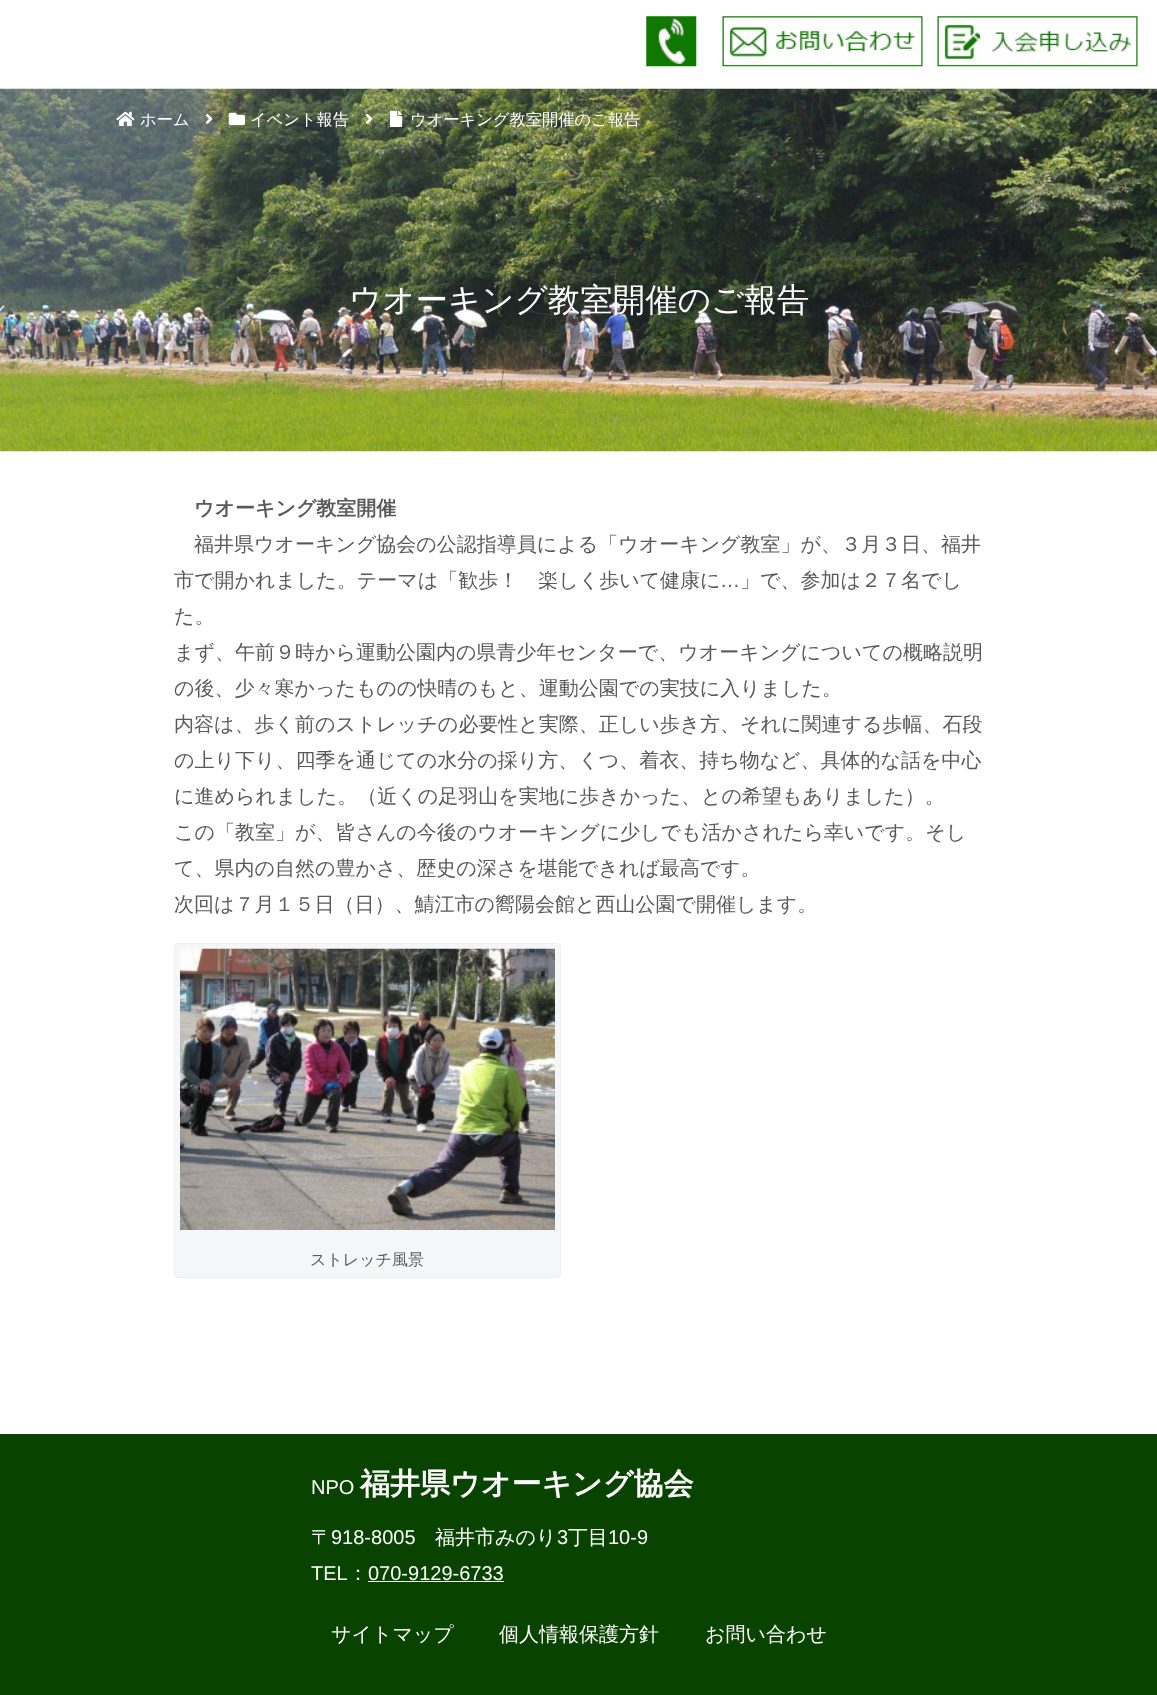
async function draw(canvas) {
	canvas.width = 1157;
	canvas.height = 1695;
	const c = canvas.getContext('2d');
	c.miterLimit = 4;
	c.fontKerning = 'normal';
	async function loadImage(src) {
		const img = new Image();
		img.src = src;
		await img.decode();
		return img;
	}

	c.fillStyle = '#fff';
	c.fillRect(0, 0, 1157, 1695);
	c.drawImage(await loadImage('img1.png'), 646, 16, 51, 51);
	c.drawImage(await loadImage('img2.png'), 722, 16, 201, 51);
	c.drawImage(await loadImage('img3.png'), 937, 16, 201, 51);
	c.drawImage(await loadImage('img4.png'), 0, 88, 1157, 364);
	c.drawImage(await loadImage('img5.png'), 116, 111, 19, 15);
	c.font = '500 16.25px WenQuanYi Zen Hei';
	c.fillText('ホーム', 140, 125);
	c.drawImage(await loadImage('img6.png'), 205, 113, 8, 11);
	c.drawImage(await loadImage('img7.png'), 228, 112, 17, 13);
	c.fillText('イベント報告', 250, 125);
	c.drawImage(await loadImage('img8.png'), 365, 113, 8, 11);
	c.drawImage(await loadImage('img9.png'), 390, 110, 13, 17);
	c.fillText('ウオーキング教室開催のご報告', 410, 125);
	c.font = '500 32.5px WenQuanYi Zen Hei';
	c.fillText('ウオーキング教室開催のご報告', 349, 311);
	c.font = 'bold 20px WenQuanYi Zen Hei';
	c.fillStyle = '#595959';
	c.fillText('ウオーキング教室開催', 194, 515);
	c.font = '500 20px WenQuanYi Zen Hei';
	c.fillText('福井県ウオーキング協会の公認指導員による「ウオーキング教室」が、３月３日、福井', 194, 551);
	c.fillText('市で開かれました。テーマは「歓歩！　楽しく歩いて健康に', 174, 587);
	c.font = '20px Liberation Sans';
	c.fillText('…', 720, 587);
	c.font = '500 20px WenQuanYi Zen Hei';
	for (const [text, x, y] of [
		['」で、参加は２７名でし', 740, 587],
		['た。', 174, 623],
		['まず、午前９時から運動公園内の県青少年センターで、ウオーキングについての概略説明', 174, 659],
		['の後、少々寒かったものの快晴のもと、運動公園での実技に入りました。', 174, 695],
		['内容は、歩く前のストレッチの必要性と実際、正しい歩き方、それに関連する歩幅、石段', 174, 731],
		['の上り下り、四季を通じての水分の採り方、くつ、着衣、持ち物など、具体的な話を中心', 174, 767],
		['に進められました。（近くの足羽山を実地に歩きかった、との希望もありました）。', 174, 803],
		['この「教室」が、皆さんの今後のウオーキングに少しでも活かされたら幸いです。そし', 174, 839],
		['て、県内の自然の豊かさ、歴史の深さを堪能できれば最高です。', 174, 875],
		['次回は７月１５日（日）、鯖江市の嚮陽会館と西山公園で開催します。', 174, 911],
	]) {
		c.fillText(text, x, y);
	}
	c.fillStyle = '#f5f6f7';
	c.beginPath();
	c.roundRect(174.5, 943.5, 386, 334, 3.5);
	c.fill();
	c.strokeStyle = '#eee';
	c.stroke();
	c.drawImage(await loadImage('img10.png'), 180, 948, 375, 282);
	c.font = '500 16px WenQuanYi Zen Hei';
	c.fillStyle = '#595959';
	c.fillText('ストレッチ風景', 310, 1265);
	c.fillStyle = '#084400';
	c.fillRect(0, 1434, 1157, 261);
	c.font = '20px Liberation Sans';
	c.fillStyle = '#fff';
	c.fillText('NPO', 311, 1494);
	c.font = 'bold 30px WenQuanYi Zen Hei';
	c.fillText('福井県ウオーキング協会', 360, 1494);
	c.font = '500 20px WenQuanYi Zen Hei';
	c.fillText('〒', 311, 1544);
	c.font = '20px Liberation Sans';
	c.fillText('918-8005', 331, 1544);
	c.font = '500 20px WenQuanYi Zen Hei';
	c.fillText('福井市みのり', 435, 1544);
	c.font = '20px Liberation Sans';
	c.fillText('3', 557, 1544);
	c.font = '500 20px WenQuanYi Zen Hei';
	c.fillText('丁目', 568, 1544);
	c.font = '20px Liberation Sans';
	c.fillText('10-9', 608, 1544);
	c.fillText('TEL', 311, 1580);
	c.font = '500 20px WenQuanYi Zen Hei';
	c.fillText('：', 348, 1580);
	c.font = '20px Liberation Sans';
	c.fillText('070-9129-6733', 368, 1580);
	c.fillRect(368, 1581, 136, 1);
	c.font = '500 20px WenQuanYi Zen Hei';
	for (const [text, x, y] of [
		['サイトマップ', 331, 1641],
		['個人情報保護方針', 499, 1641],
		['お問い合わせ', 705, 1641],
	]) {
		c.fillText(text, x, y);
	}
}

draw(document.querySelector('canvas'));
